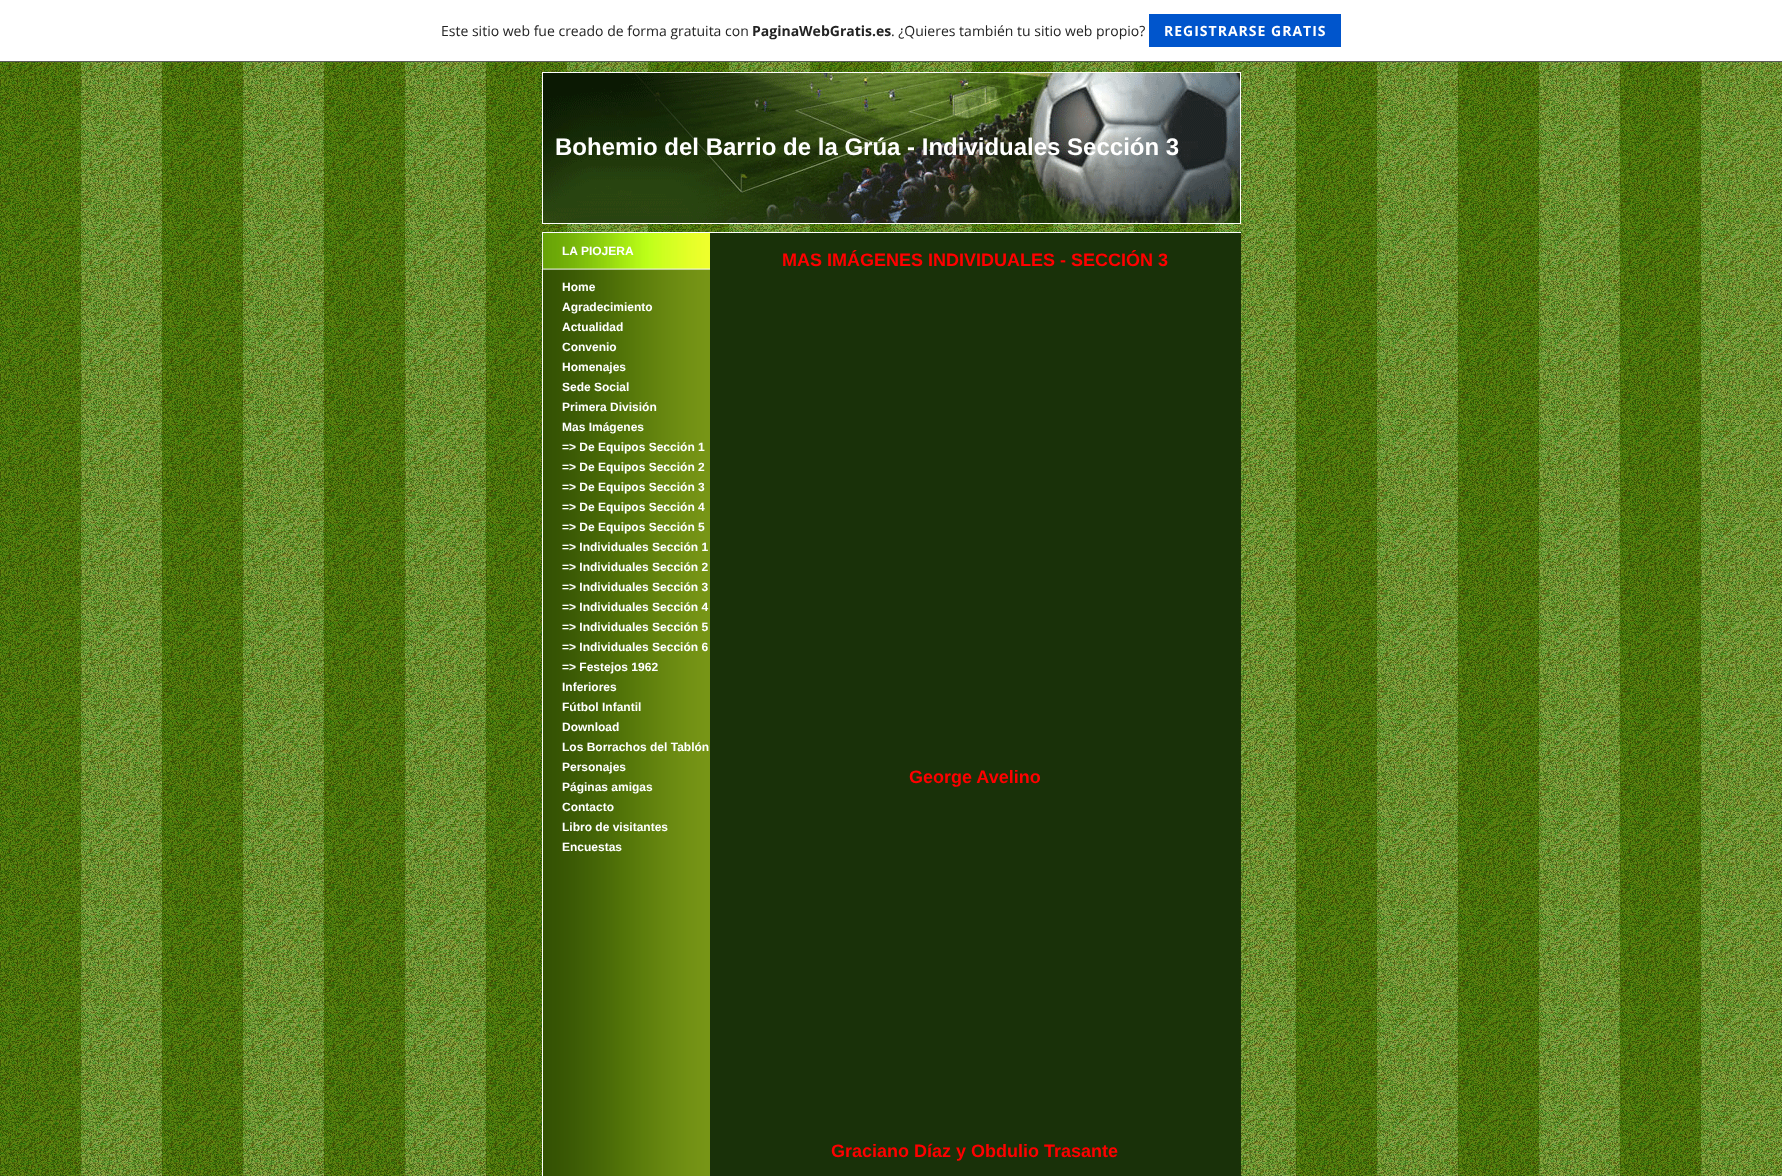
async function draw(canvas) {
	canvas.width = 1782;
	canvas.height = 1176;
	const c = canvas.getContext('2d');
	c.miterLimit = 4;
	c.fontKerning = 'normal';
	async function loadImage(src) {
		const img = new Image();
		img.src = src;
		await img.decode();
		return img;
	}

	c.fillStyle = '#fff';
	c.fillRect(0, 0, 1782, 1176);
	c.drawImage(await loadImage('img1.png'), 0, 62, 1782, 1114);
	c.fillStyle = '#5a5a5a';
	c.fillRect(0, 61, 1782, 1);
	c.font = '14px Open Sans';
	c.fillStyle = '#232323';
	c.fillText('Este sitio web fue creado de forma gratuita con', 441, 36);
	c.font = 'bold 14px Open Sans';
	c.fillText('PaginaWebGratis.es', 752, 36);
	c.font = '14px Open Sans';
	c.fillText('. ¿Quieres también tu sitio web propio?', 891, 36);
	c.fillStyle = '#05c';
	c.fillRect(1149, 14, 192, 33);
	c.letterSpacing = '1px';
	c.font = 'bold 14px Open Sans';
	c.fillStyle = '#fff';
	c.fillText('REGISTRARSE GRATIS', 1164, 36);
	c.drawImage(await loadImage('img2.png'), 542, 72, 699, 152);
	c.letterSpacing = '0px';
	c.font = 'bold 24px Liberation Sans';
	c.fillText('Bohemio del Barrio de la Grúa - Individuales Sección 3', 555, 155);
	c.drawImage(await loadImage('img3.png'), 542, 270, 168, 906);
	c.drawImage(await loadImage('img4.png'), 542, 232, 168, 38);
	c.font = 'bold 12px Liberation Sans';
	for (const [text, x, y] of [
		['LA PIOJERA', 562, 255],
		['Home', 562, 291],
		['Agradecimiento', 562, 311],
		['Actualidad', 562, 331],
		['Convenio', 562, 351],
		['Homenajes', 562, 371],
		['Sede Social', 562, 391],
		['Primera División', 562, 411],
		['Mas Imágenes', 562, 431],
		['=> De Equipos Sección 1', 562, 451],
		['=> De Equipos Sección 2', 562, 471],
		['=> De Equipos Sección 3', 562, 491],
		['=> De Equipos Sección 4', 562, 511],
		['=> De Equipos Sección 5', 562, 531],
		['=> Individuales Sección 1', 562, 551],
		['=> Individuales Sección 2', 562, 571],
		['=> Individuales Sección 3', 562, 591],
		['=> Individuales Sección 4', 562, 611],
		['=> Individuales Sección 5', 562, 631],
		['=> Individuales Sección 6', 562, 651],
		['=> Festejos 1962', 562, 671],
		['Inferiores', 562, 691],
		['Fútbol Infantil', 562, 711],
		['Download', 562, 731],
		['Los Borrachos del Tablón', 562, 751],
		['Personajes', 562, 771],
		['Páginas amigas', 562, 791],
		['Contacto', 562, 811],
		['Libro de visitantes', 562, 831],
		['Encuestas', 562, 851],
	]) {
		c.fillText(text, x, y);
	}
	c.fillStyle = '#193109';
	c.fillRect(710, 233, 531, 943);
	c.fillStyle = '#fff';
	c.fillRect(710, 232, 531, 1);
	c.font = 'bold 18px Liberation Sans';
	c.fillStyle = '#f00';
	for (const [text, x, y] of [
		['MAS IMÁGENES INDIVIDUALES - SECCIÓN 3', 782, 266],
		['George Avelino', 909, 783],
		['Graciano Díaz y Obdulio Trasante', 831, 1157],
	]) {
		c.fillText(text, x, y);
	}
}

draw(document.querySelector('canvas'));
